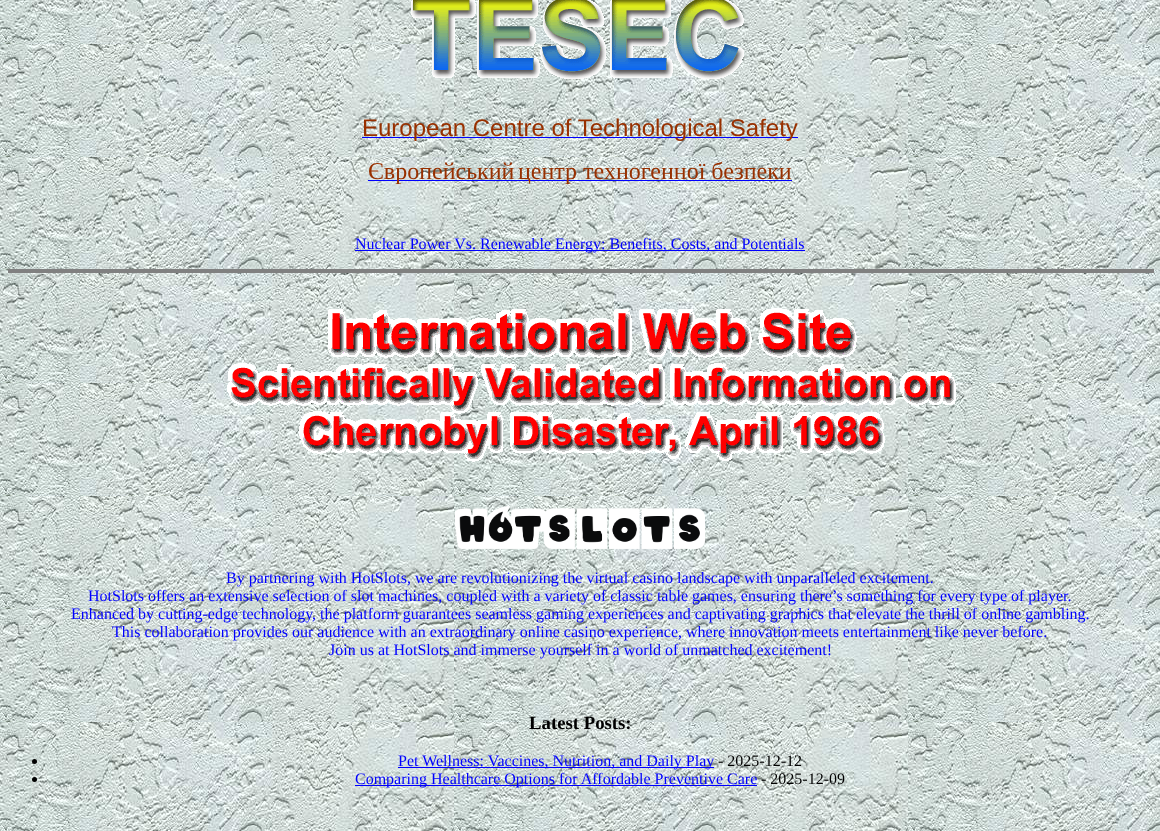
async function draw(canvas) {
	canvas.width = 1160;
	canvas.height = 831;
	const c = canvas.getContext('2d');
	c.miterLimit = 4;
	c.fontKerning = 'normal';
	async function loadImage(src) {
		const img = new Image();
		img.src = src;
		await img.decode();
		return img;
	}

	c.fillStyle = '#fff';
	c.fillRect(0, 0, 1160, 831);
	c.drawImage(await loadImage('img1.png'), 0, 0, 1160, 831);
	c.drawImage(await loadImage('img2.png'), 411, 0, 333, 79);
	c.fillStyle = '#00f';
	c.fillRect(362, 137, 436, 1);
	c.font = '24px Liberation Sans';
	c.fillStyle = '#983000';
	c.fillText('European Centre of Technological Safety', 362, 136);
	c.fillStyle = '#00f';
	c.fillRect(368, 180, 424, 1);
	c.font = '24px Liberation Serif';
	c.fillStyle = '#983000';
	c.fillText('Європейський', 368, 179);
	c.fillText('центр техногенної безпеки', 518, 179);
	c.fillStyle = '#00f';
	c.fillRect(355, 250, 450, 1);
	c.font = '16px Liberation Serif';
	c.fillText('Nuclear Power Vs. Renewable Energy: Benefits, Costs, and Potentials', 355, 249);
	c.fillStyle = '#808080';
	c.fillRect(8, 269, 1146, 4);
	c.drawImage(await loadImage('img3.png'), 227, 308, 729, 154);
	c.drawImage(await loadImage('img4.png'), 455, 506, 250, 43);
	c.fillStyle = '#00f';
	for (const [text, x, y] of [
		['By partnering with HotSlots, we are revolutionizing the virtual casino landscape with unparalleled excitement.', 226, 583],
		['HotSlots offers an extensive selection of slot machines, coupled with a variety of classic table games, ensuring there’s something for every type of player.', 88, 601],
		['Enhanced by cutting-edge technology, the platform guarantees seamless gaming experiences and captivating graphics that elevate the thrill of online gambling.', 71, 619],
		['This collaboration provides our audience with an extraordinary online casino experience, where innovation meets entertainment like never before.', 112, 637],
		['Join us at HotSlots and immerse yourself in a world of unmatched excitement!', 329, 655],
	]) {
		c.fillText(text, x, y);
	}
	c.font = 'bold 18.75px Liberation Serif';
	c.fillStyle = '#000';
	c.fillText('Latest Posts:', 529, 729);
	c.beginPath();
	c.arc(34.5, 761.5, 2.5, 0, 2 * Math.PI);
	c.fill();
	c.fillStyle = '#00f';
	c.fillRect(398, 767, 316, 1);
	c.font = '16px Liberation Serif';
	c.fillText('Pet Wellness: Vaccines, Nutrition, and Daily Play', 398, 766);
	c.fillStyle = '#000';
	c.fillText('- 2025-12-12', 718, 766);
	c.beginPath();
	c.arc(34.5, 779.5, 2.5, 0, 2 * Math.PI);
	c.fill();
	c.fillStyle = '#00f';
	c.fillRect(355, 785, 402, 1);
	c.fillText('Comparing Healthcare Options for Affordable Preventive Care', 355, 784);
	c.fillStyle = '#000';
	c.fillText('- 2025-12-09', 761, 784);
}

draw(document.querySelector('canvas'));
